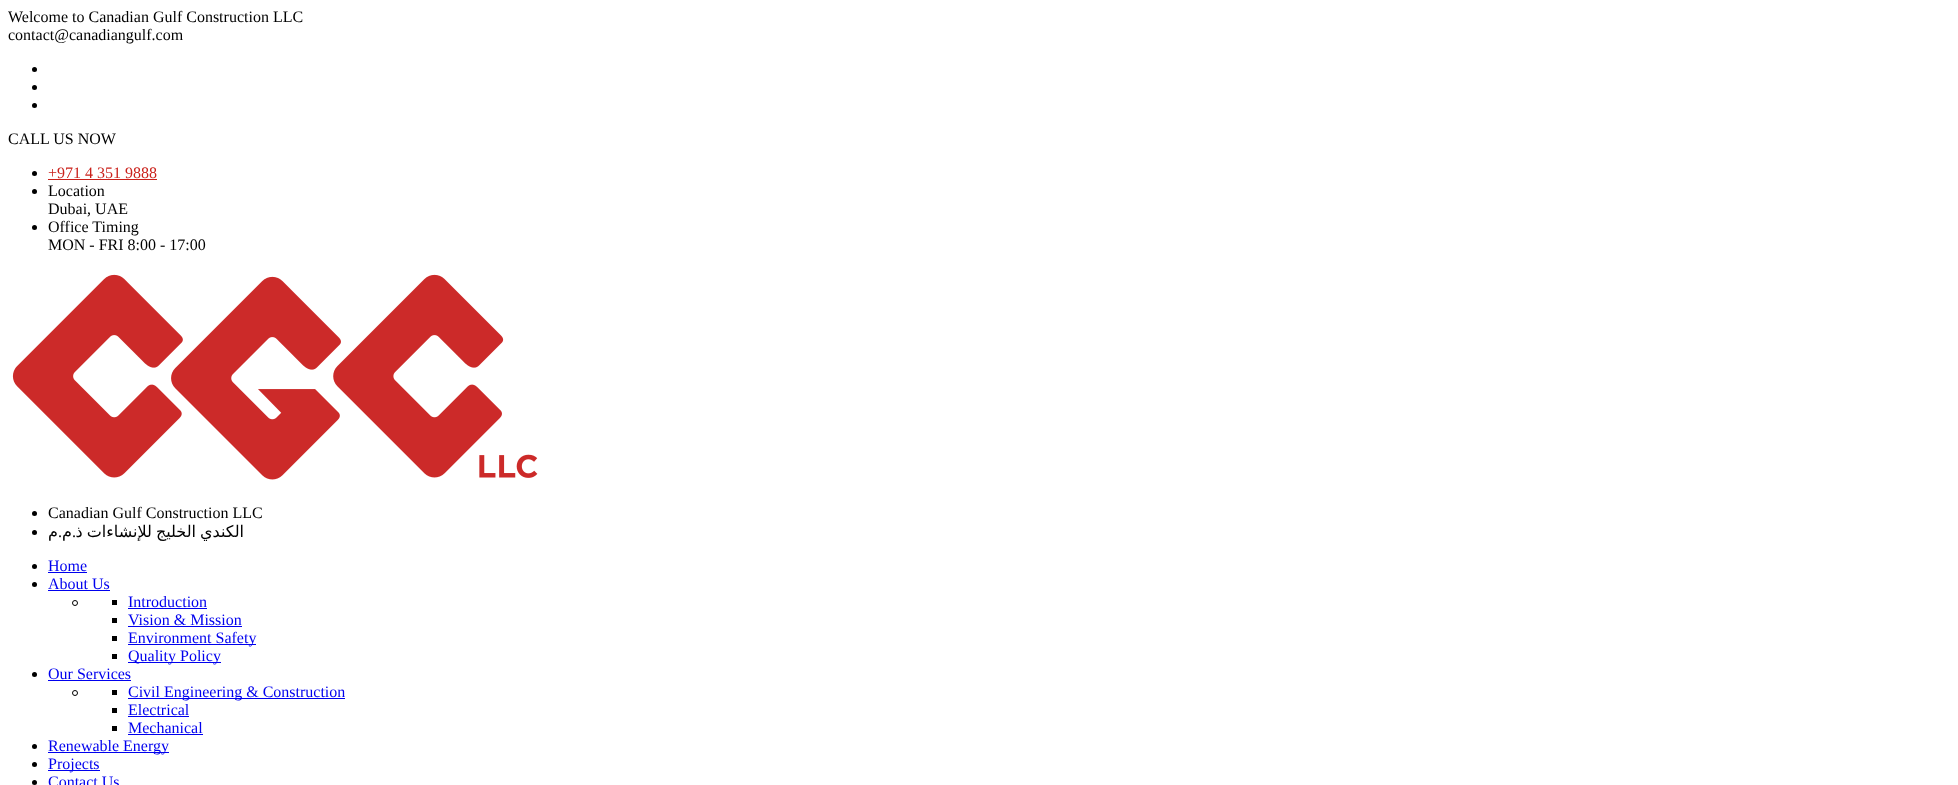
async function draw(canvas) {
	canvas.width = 1958;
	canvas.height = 785;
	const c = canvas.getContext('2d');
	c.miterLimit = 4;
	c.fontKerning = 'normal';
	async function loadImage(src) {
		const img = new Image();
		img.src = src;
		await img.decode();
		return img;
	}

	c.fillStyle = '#fff';
	c.fillRect(0, 0, 1958, 785);
	c.font = '16px Liberation Serif';
	c.fillStyle = '#000';
	c.fillText('Welcome to Canadian Gulf Construction LLC', 8, 22);
	c.fillText('contact@canadiangulf.com', 8, 40);
	c.beginPath();
	c.arc(34.5, 69.5, 2.5, 0, 2 * Math.PI);
	c.fill();
	c.beginPath();
	c.arc(34.5, 87.5, 2.5, 0, 2 * Math.PI);
	c.fill();
	c.beginPath();
	c.arc(34.5, 105.5, 2.5, 0, 2 * Math.PI);
	c.fill();
	c.fillText('CALL US NOW', 8, 144);
	c.beginPath();
	c.arc(34.5, 173.5, 2.5, 0, 2 * Math.PI);
	c.fill();
	c.fillStyle = '#ca211b';
	c.fillText('+971 4 351 9888', 48, 178);
	c.fillRect(48, 179, 109, 1);
	c.fillStyle = '#000';
	c.beginPath();
	c.arc(34.5, 191.5, 2.5, 0, 2 * Math.PI);
	c.fill();
	c.fillText('Location', 48, 196);
	c.fillText('Dubai, UAE', 48, 214);
	c.beginPath();
	c.arc(34.5, 227.5, 2.5, 0, 2 * Math.PI);
	c.fill();
	c.fillText('Office Timing', 48, 232);
	c.fillText('MON - FRI 8:00 - 17:00', 48, 250);
	c.drawImage(await loadImage('img1.png'), 12, 274, 526, 206);
	c.beginPath();
	c.arc(34.5, 513.5, 2.5, 0, 2 * Math.PI);
	c.fill();
	c.fillText('Canadian Gulf Construction LLC', 48, 518);
	c.beginPath();
	c.arc(34.5, 532.5, 2.5, 0, 2 * Math.PI);
	c.fill();
	c.direction = 'rtl';
	c.font = '16px DejaVu Sans';
	c.fillText('م', 58, 537);
	c.font = '16px Liberation Serif';
	c.fillText('.', 62, 537);
	c.font = '16px DejaVu Sans';
	c.fillText('م', 72, 537);
	c.font = '16px Liberation Serif';
	c.fillText('.', 76, 537);
	c.wordSpacing = '-1px';
	c.font = '16px DejaVu Sans';
	c.fillText('الكندي الخليج للإنشاءات ذ', 244, 537);
	c.beginPath();
	c.arc(34.5, 566.5, 2.5, 0, 2 * Math.PI);
	c.fill();
	c.wordSpacing = '0px';
	c.direction = 'ltr';
	c.font = '16px Liberation Serif';
	c.fillStyle = '#00e';
	c.fillText('Home', 48, 571);
	c.fillRect(48, 572, 39, 1);
	c.fillStyle = '#000';
	c.beginPath();
	c.arc(34.5, 584.5, 2.5, 0, 2 * Math.PI);
	c.fill();
	c.fillStyle = '#00e';
	c.fillText('About Us', 48, 589);
	c.fillRect(48, 590, 62, 1);
	c.beginPath();
	c.arc(75, 603, 2.5, 0, 2 * Math.PI);
	c.strokeStyle = '#000';
	c.stroke();
	c.fillStyle = '#000';
	c.fillRect(112, 600, 5, 5);
	c.fillStyle = '#00e';
	c.fillText('Introduction', 128, 607);
	c.fillRect(128, 608, 79, 1);
	c.fillStyle = '#000';
	c.fillRect(112, 618, 5, 5);
	c.fillStyle = '#00e';
	c.fillText('Vision & Mission', 128, 625);
	for (const [x, y, w, h, color] of [
		[128, 626, 114, 1, '#00e'],
		[112, 636, 5, 5, '#000'],
		[128, 644, 128, 1, '#00e'],
	]) {
		c.fillStyle = color;
		c.fillRect(x, y, w, h);
	}
	c.fillText('Environment Safety', 128, 643);
	c.fillStyle = '#000';
	c.fillRect(112, 654, 5, 5);
	c.fillStyle = '#00e';
	c.fillRect(128, 662, 93, 1);
	c.fillText('Quality Policy', 128, 661);
	c.fillStyle = '#000';
	c.beginPath();
	c.arc(34.5, 674.5, 2.5, 0, 2 * Math.PI);
	c.fill();
	c.fillStyle = '#00e';
	c.fillText('Our Services', 48, 679);
	c.fillRect(48, 680, 83, 1);
	c.beginPath();
	c.arc(75, 693, 2.5, 0, 2 * Math.PI);
	c.stroke();
	c.fillStyle = '#000';
	c.fillRect(112, 690, 5, 5);
	c.fillStyle = '#00e';
	c.fillRect(128, 698, 217, 1);
	c.fillText('Civil Engineering & Construction', 128, 697);
	c.fillStyle = '#000';
	c.fillRect(112, 708, 5, 5);
	c.fillStyle = '#00e';
	c.fillText('Electrical', 128, 715);
	c.fillRect(128, 716, 61, 1);
	c.fillStyle = '#000';
	c.fillRect(112, 726, 5, 5);
	c.fillStyle = '#00e';
	c.fillText('Mechanical', 128, 733);
	c.fillRect(128, 734, 75, 1);
	c.fillStyle = '#000';
	c.beginPath();
	c.arc(34.5, 746.5, 2.5, 0, 2 * Math.PI);
	c.fill();
	c.fillStyle = '#00e';
	c.fillRect(48, 752, 121, 1);
	c.fillText('Renewable Energy', 48, 751);
	c.fillStyle = '#000';
	c.beginPath();
	c.arc(34.5, 764.5, 2.5, 0, 2 * Math.PI);
	c.fill();
	c.fillStyle = '#00e';
	c.fillRect(48, 770, 52, 1);
	c.fillText('Projects', 48, 769);
	c.fillStyle = '#000';
	c.beginPath();
	c.arc(34.5, 782.5, 2.5, 0, 2 * Math.PI);
	c.fill();
	c.fillStyle = '#00e';
	c.fillText('Contact Us', 48, 787);
}

draw(document.querySelector('canvas'));
